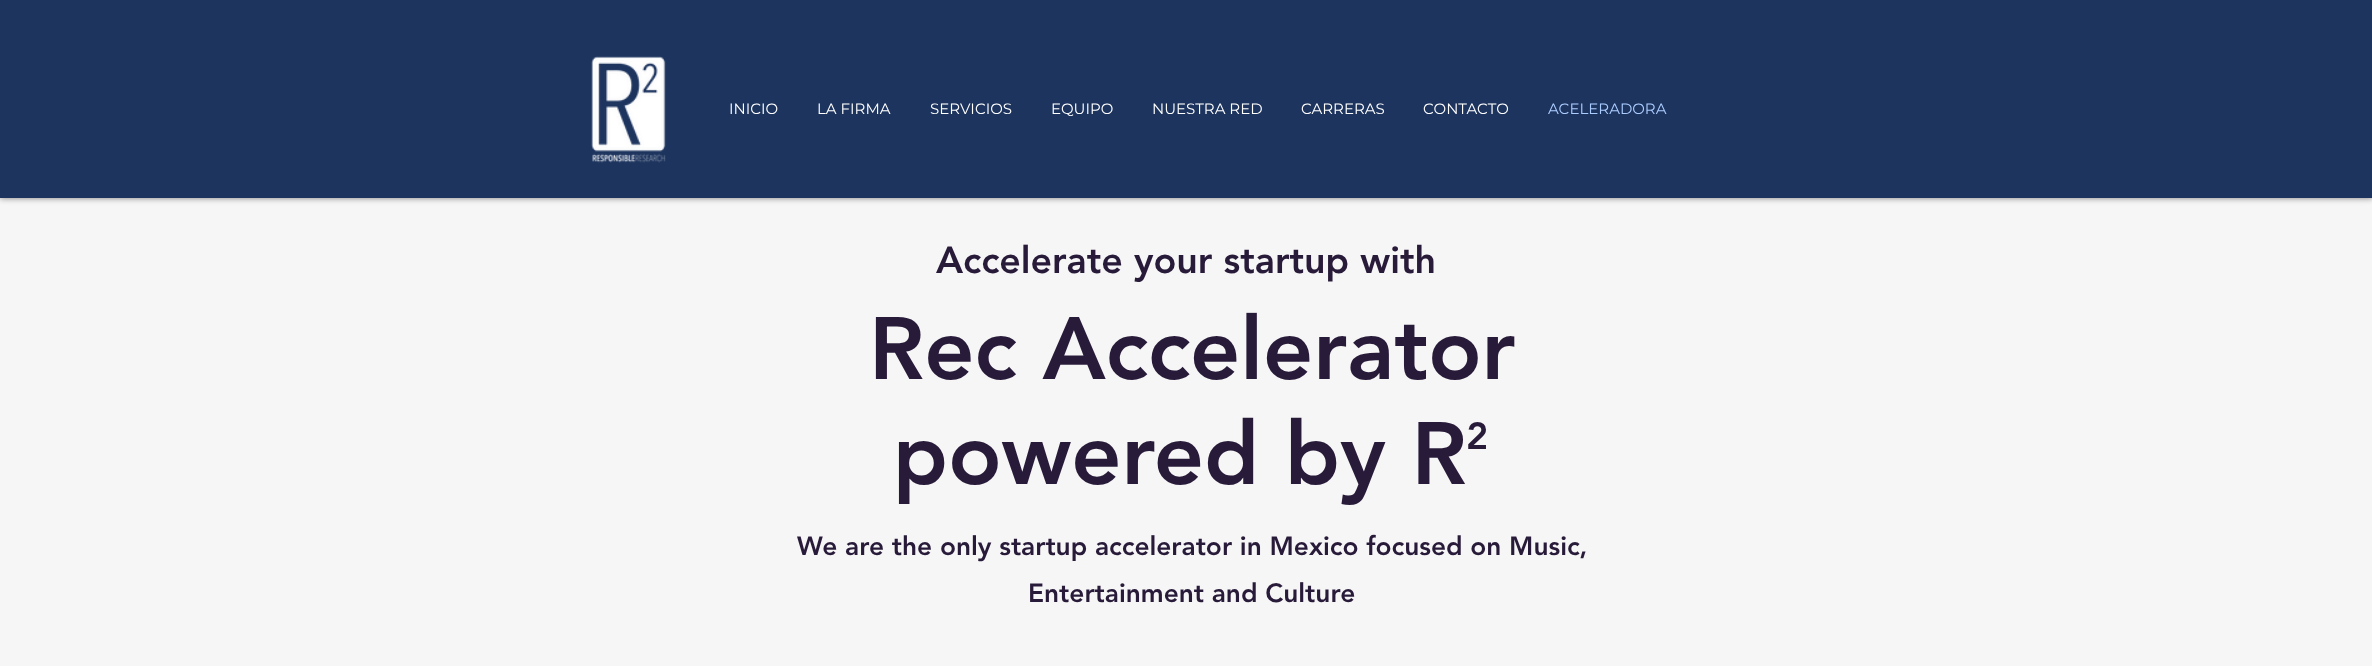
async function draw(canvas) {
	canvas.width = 2372;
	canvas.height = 666;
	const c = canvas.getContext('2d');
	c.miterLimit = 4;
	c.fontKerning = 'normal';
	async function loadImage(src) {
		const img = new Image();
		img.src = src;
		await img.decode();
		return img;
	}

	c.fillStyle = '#f6f6f6';
	c.fillRect(0, 0, 2372, 666);
	c.fillStyle = '#00000080';
	c.filter = 'blur(3px)';
	c.beginPath();
	c.rect(0, 0, 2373, 198);
	c.fill();
	c.filter = 'none';
	c.fillStyle = '#1d345e';
	c.fillRect(0, 0, 2372, 198);
	c.drawImage(await loadImage('img1.png'), 591, 56, 75, 107);
	c.font = '15px Montserrat';
	c.fillStyle = '#fff';
	for (const [text, x, y] of [
		['INICIO', 729, 114],
		['LA FIRMA', 817, 114],
		['SERVICIOS', 930, 114],
		['EQUIPO', 1051, 114],
		['NUESTRA RED', 1152, 114],
		['CARRERAS', 1301, 114],
		['CONTACTO', 1423, 114],
	]) {
		c.fillText(text, x, y);
	}
	c.fillStyle = '#abccff';
	c.fillText('ACELERADORA', 1548, 114);
	c.font = '900 37.5px "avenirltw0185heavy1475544"';
	c.fillStyle = '#281a39';
	c.fillText('Accelerate your startup with', 936, 273);
	c.font = '900 87.5px "avenirltw0185heavy1475544"';
	c.fillText('Rec Accelerator', 869, 379);
	c.fillText('powered by R', 893, 484);
	c.font = '900 37.5px "avenirltw0185heavy1475544"';
	c.fillText('2', 1466, 449);
	c.font = '900 26.25px "avenirltw0185heavy1475544"';
	c.fillText('We are the only startup accelerator in Mexico focused on Music,', 797, 555);
	c.fillText('Entertainment and Culture', 1028, 602);
}

draw(document.querySelector('canvas'));
